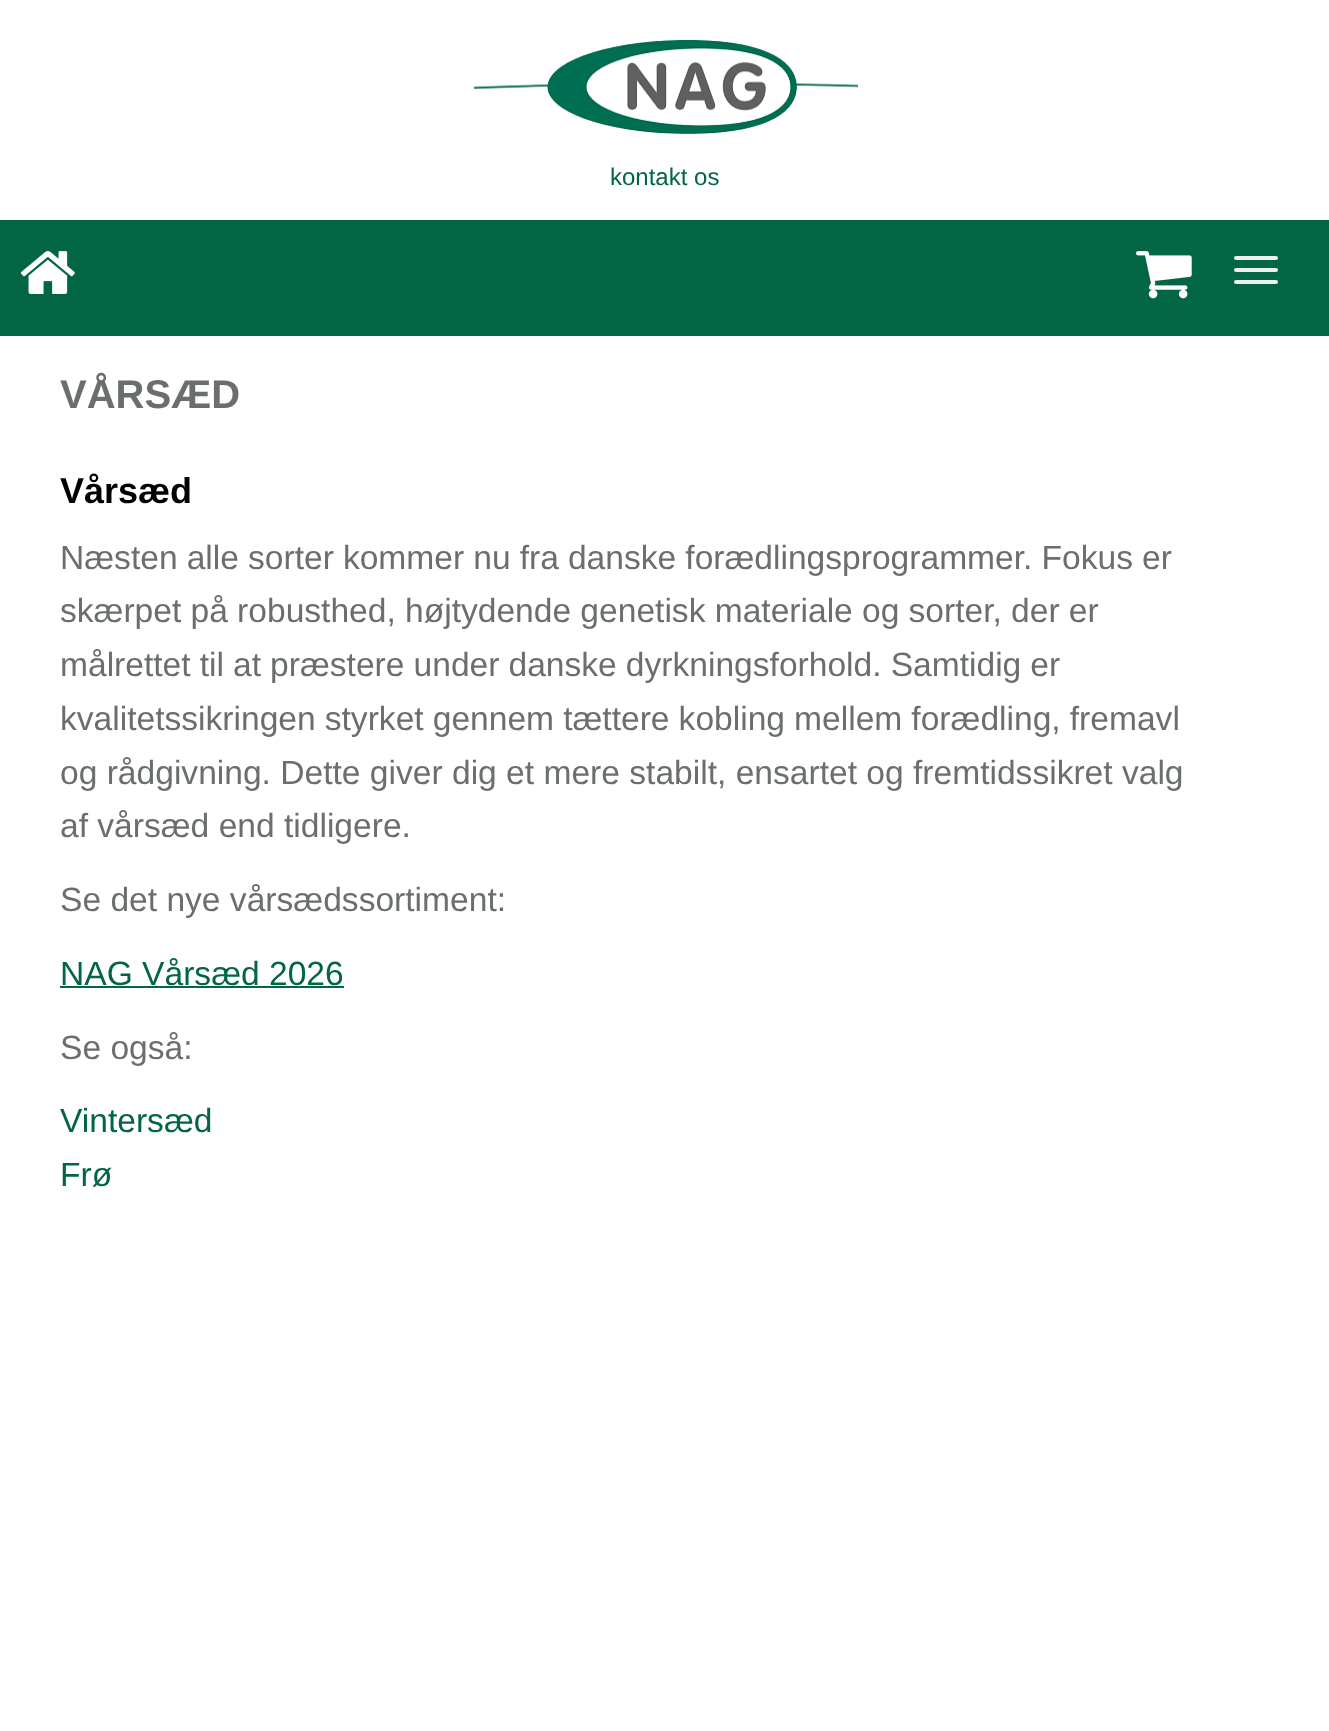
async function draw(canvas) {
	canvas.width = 1329;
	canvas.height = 1731;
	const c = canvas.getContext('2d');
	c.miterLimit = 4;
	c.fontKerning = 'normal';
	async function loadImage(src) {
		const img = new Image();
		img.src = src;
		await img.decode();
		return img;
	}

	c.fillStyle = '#fff';
	c.fillRect(0, 0, 1329, 1731);
	c.drawImage(await loadImage('img1.png'), 474, 40, 384, 94);
	c.font = '24px Liberation Sans';
	c.fillStyle = '#026644';
	c.fillText('kontakt os', 610, 185);
	c.fillRect(0, 220, 1329, 116);
	c.drawImage(await loadImage('img2.png'), 20, 251, 55, 43);
	c.drawImage(await loadImage('img3.png'), 1136, 251, 56, 48);
	c.fillStyle = '#ecf0f1';
	c.beginPath();
	c.roundRect(1234, 256, 44, 4, 2);
	c.fill();
	c.beginPath();
	c.roundRect(1234, 268, 44, 4, 2);
	c.fill();
	c.beginPath();
	c.roundRect(1234, 280, 44, 4, 2);
	c.fill();
	c.font = 'bold 40px Liberation Sans';
	c.fillStyle = '#6a6e6e';
	c.fillText('VÅRSÆD', 60, 408);
	c.font = 'bold 36px Liberation Sans';
	c.fillStyle = '#000';
	c.fillText('Vårsæd', 60, 503);
	c.wordSpacing = '-0.25px';
	c.font = '33.6px Liberation Sans';
	c.fillStyle = '#6a6e6e';
	c.fillText('Næsten alle sorter kommer nu fra danske forædlingsprogrammer. Fokus er', 60, 569);
	c.wordSpacing = '-0.1px';
	c.fillText('skærpet på robusthed, højtydende genetisk materiale og sorter, der er', 60, 622);
	c.wordSpacing = '-0.25px';
	c.fillText('målrettet til at præstere under danske dyrkningsforhold. Samtidig er', 60, 676);
	c.fillText('kvalitetssikringen styrket gennem tættere kobling mellem forædling, fremavl', 60, 730);
	c.wordSpacing = '0px';
	for (const [text, x, y] of [
		['og rådgivning. Dette giver dig et mere stabilt, ensartet og fremtidssikret valg', 60, 784],
		['af vårsæd end tidligere.', 60, 837],
		['Se det nye vårsædssortiment:', 60, 911],
	]) {
		c.fillText(text, x, y);
	}
	c.fillStyle = '#026644';
	c.fillText('NAG Vårsæd 2026', 60, 985);
	c.fillRect(60, 986, 284, 2);
	c.fillStyle = '#6a6e6e';
	c.fillText('Se også:', 60, 1059);
	c.fillStyle = '#026644';
	c.fillText('Vintersæd', 60, 1132);
	c.fillText('Frø', 60, 1186);
}

draw(document.querySelector('canvas'));
